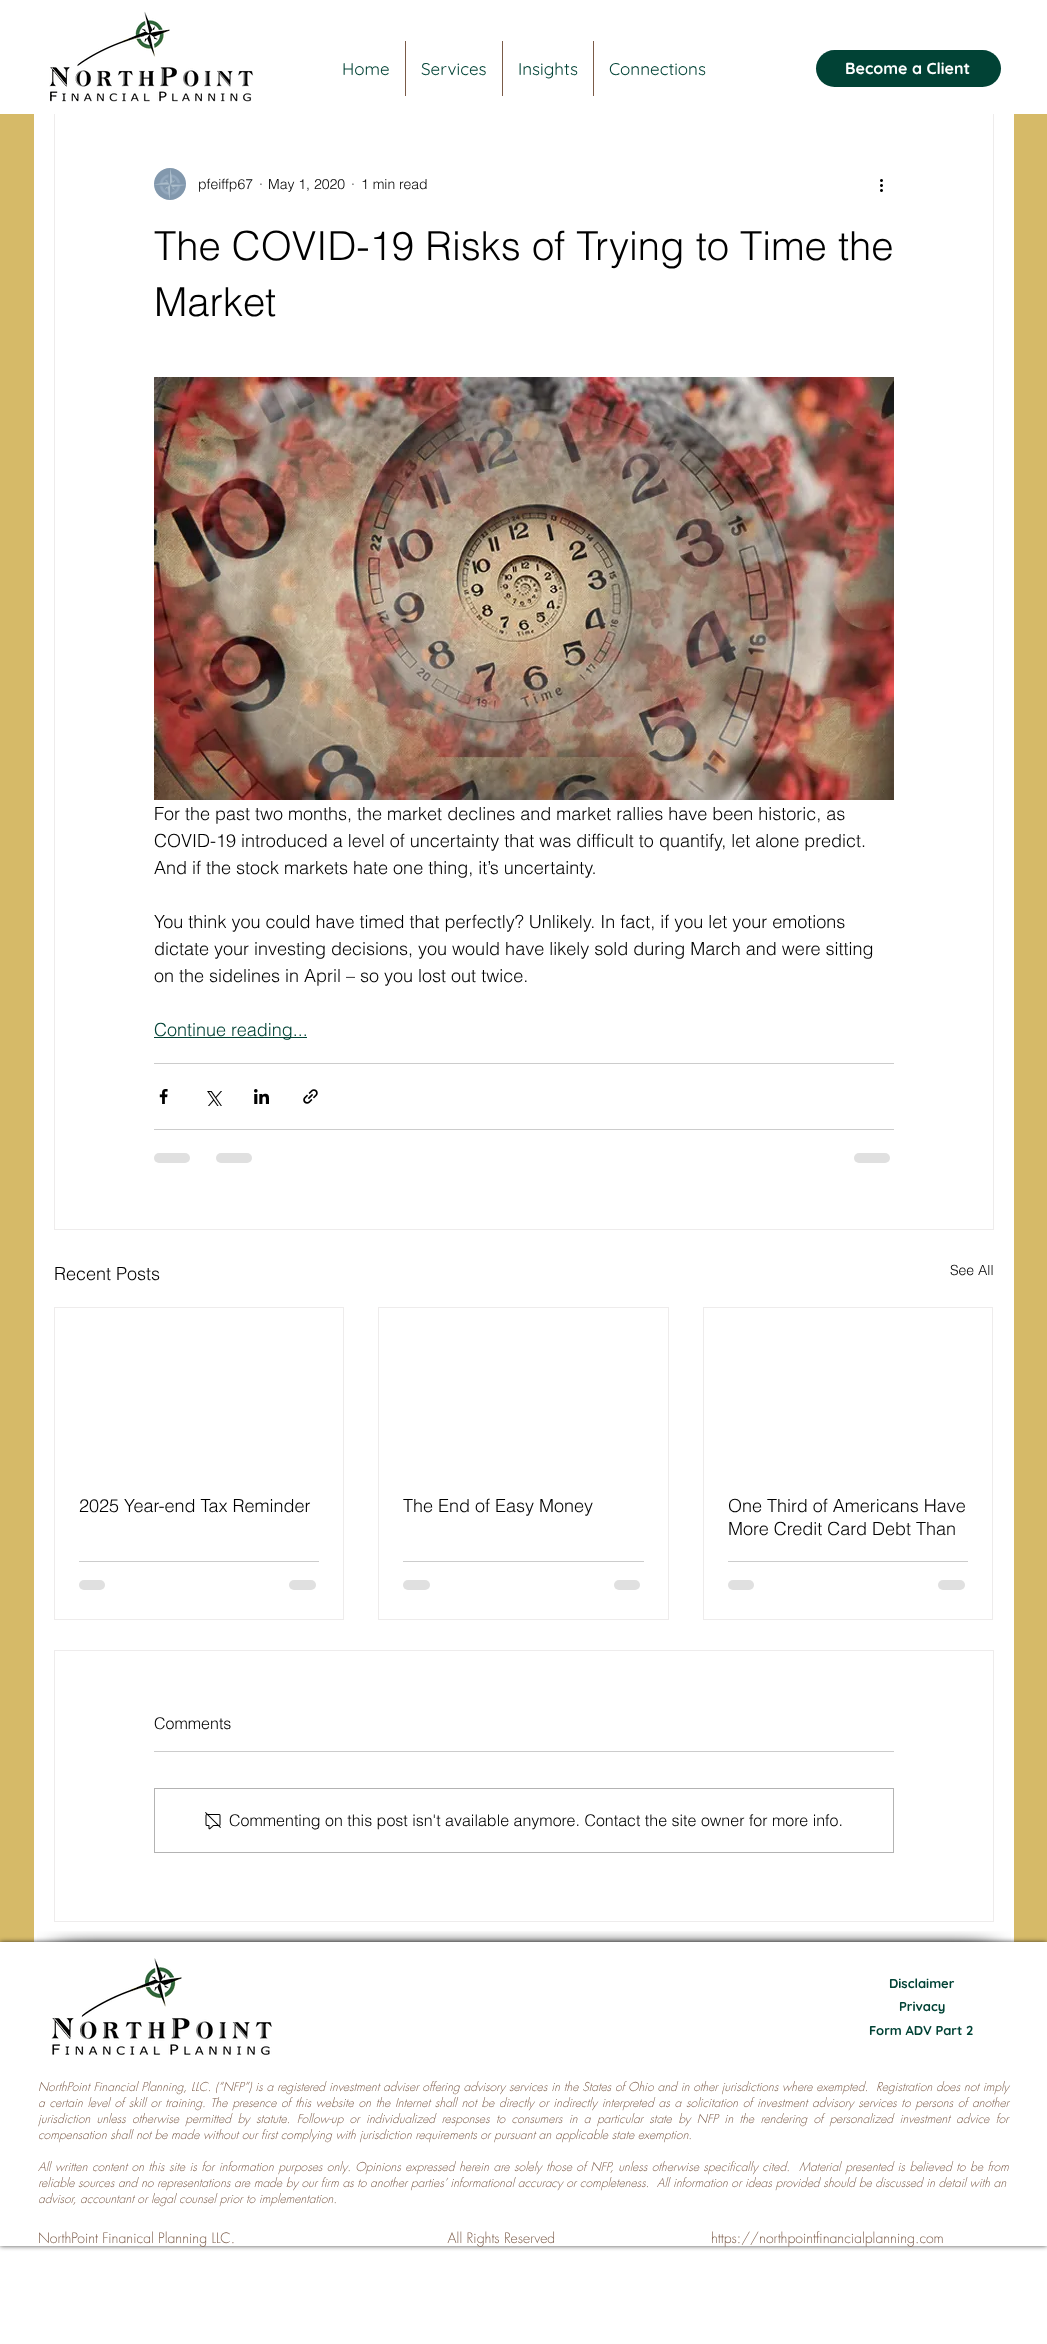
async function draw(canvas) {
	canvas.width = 1047;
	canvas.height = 2344;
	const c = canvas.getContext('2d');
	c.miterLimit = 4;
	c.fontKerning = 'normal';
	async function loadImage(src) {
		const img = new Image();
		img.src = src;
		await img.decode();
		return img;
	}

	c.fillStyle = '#fff';
	c.fillRect(0, 0, 1047, 2344);
	c.drawImage(await loadImage('img1.png'), 49, 11, 205, 91);
	c.font = '17px Quicksand';
	c.fillStyle = '#014235';
	c.fillText('Home', 342, 75);
	c.fillStyle = '#7b5b48';
	c.fillRect(405, 41, 1, 55);
	c.fillStyle = '#014235';
	c.fillText('Services', 421, 75);
	c.fillStyle = '#7b5b48';
	c.fillRect(502, 41, 1, 55);
	c.fillStyle = '#014235';
	c.fillText('Insights', 518, 75);
	c.fillStyle = '#7b5b48';
	c.fillRect(593, 41, 1, 55);
	c.fillStyle = '#014235';
	c.fillText('Connections', 609, 75);
	c.beginPath();
	c.roundRect(816, 50, 185, 37, 18.5);
	c.fill();
	c.font = 'bold 16px Quicksand';
	c.fillStyle = '#fff';
	c.fillText('Become a Client', 845, 74);
	c.fillStyle = '#d6ba68';
	c.fillRect(0, 114, 1047, 1828);
	c.fillStyle = '#fff';
	c.fillRect(34, 114, 980, 1828);
	c.strokeStyle = '#eeecec';
	c.strokeRect(54.5, 107.5, 939, 1122);
	c.fillRect(54, 107, 940, 7);
	c.drawImage(await loadImage('img2.png'), 154, 168, 32, 32);
	c.font = '300 14px helvetica';
	c.fillStyle = '#000';
	for (const [text, x, y] of [
		['pfeiffp67', 198, 189],
		['·', 259, 189],
		['May 1, 2020', 268, 189],
		['·', 351, 189],
		['1 min read', 361, 189],
	]) {
		c.fillText(text, x, y);
	}
	c.drawImage(await loadImage('img3.png'), 880, 179, 3, 13);
	c.font = '300 40px helvetica';
	c.fillText('The COVID-19 Risks of Trying to Time the', 154, 260);
	c.fillText('Market', 154, 316);
	c.drawImage(await loadImage('img4.png'), 154, 377, 740, 423);
	c.font = '300 18px helvetica';
	for (const [text, x, y] of [
		['For the past two months, the market declines and market rallies have been historic, as', 154, 820],
		['COVID-19 introduced a level of uncertainty that was difficult to quantify, let alone predict.', 154, 847],
		['And if the stock markets hate one thing, it’s uncertainty.', 154, 874],
		['You think you could have timed that perfectly? Unlikely. In fact, if you let your emotions', 154, 928],
		['dictate your investing decisions, you would have likely sold during March and were sitting', 154, 955],
		['on the sidelines in April – so you lost out twice.', 154, 982],
	]) {
		c.fillText(text, x, y);
	}
	c.fillStyle = '#014235';
	c.fillRect(154, 1037, 153, 1);
	c.fillText('Continue reading...', 154, 1036);
	c.fillStyle = '#ccc';
	c.fillRect(154, 1063, 740, 1);
	c.drawImage(await loadImage('img5.png'), 159, 1089, 9, 15);
	c.drawImage(await loadImage('img6.png'), 207, 1091, 15, 15);
	c.drawImage(await loadImage('img7.png'), 254, 1089, 15, 15);
	c.drawImage(await loadImage('img8.png'), 303, 1089, 15, 15);
	c.fillRect(154, 1129, 740, 1);
	c.fillStyle = '#e0e0e0';
	c.beginPath();
	c.roundRect(154, 1153, 36, 10, 5);
	c.fill();
	c.beginPath();
	c.roundRect(216, 1153, 36, 10, 5);
	c.fill();
	c.beginPath();
	c.roundRect(854, 1153, 36, 10, 5);
	c.fill();
	c.fillStyle = '#000';
	c.fillText('Recent Posts', 54, 1280);
	c.font = '300 14px helvetica';
	c.fillText('See All', 950, 1275);
	c.strokeRect(54.5, 1307.5, 289, 312);
	c.font = '300 18px helvetica';
	c.fillText('2025 Year-end Tax Reminder', 79, 1512);
	c.fillStyle = '#ccc';
	c.fillRect(79, 1561, 240, 1);
	c.fillStyle = '#e0e0e0';
	c.beginPath();
	c.roundRect(79, 1580, 26, 10, 5);
	c.fill();
	c.beginPath();
	c.roundRect(289, 1580, 27, 10, 5);
	c.fill();
	c.strokeRect(378.5, 1307.5, 290, 312);
	c.fillStyle = '#000';
	c.fillText('The End of Easy Money', 403, 1512);
	c.fillStyle = '#ccc';
	c.fillRect(403, 1561, 241, 1);
	c.fillStyle = '#e0e0e0';
	c.beginPath();
	c.roundRect(403, 1580, 27, 10, 5);
	c.fill();
	c.beginPath();
	c.roundRect(614, 1580, 26, 10, 5);
	c.fill();
	c.strokeRect(703.5, 1307.5, 289, 312);
	c.fillStyle = '#000';
	c.fillText('One Third of Americans Have', 728, 1512);
	c.fillText('More Credit Card Debt Than', 728, 1535);
	c.fillStyle = '#ccc';
	c.fillRect(728, 1561, 240, 1);
	c.fillStyle = '#e0e0e0';
	c.beginPath();
	c.roundRect(728, 1580, 26, 10, 5);
	c.fill();
	c.beginPath();
	c.roundRect(938, 1580, 27, 10, 5);
	c.fill();
	c.strokeRect(54.5, 1650.5, 939, 271);
	c.font = '300 16px helvetica';
	c.fillStyle = '#000';
	c.fillText('Comments', 154, 1729);
	c.fillStyle = '#ccc';
	c.fillRect(154, 1751, 740, 1);
	c.strokeStyle = '#b3b3b3';
	c.strokeRect(154.5, 1788.5, 739, 64);
	c.drawImage(await loadImage('img9.png'), 205, 1812, 16, 18);
	c.fillStyle = '#000';
	c.fillText('Commenting on this post isn\'t available anymore. Contact the site owner for more info.', 229, 1826);
	c.fillStyle = '#000000b3';
	c.filter = 'blur(2.5px)';
	c.beginPath();
	c.rect(0, 1942, 1047, 304);
	c.fill();
	c.filter = 'none';
	c.fillStyle = '#fff';
	c.fillRect(0, 1942, 1047, 304);
	c.drawImage(await loadImage('img10.png'), 37, 1931, 97, 11);
	c.drawImage(await loadImage('img11.png'), 134, 1931, 780, 11);
	c.drawImage(await loadImage('img12.png'), 914, 1931, 97, 11);
	c.drawImage(await loadImage('img13.png'), 51, 1958, 221, 97);
	c.font = 'bold 13px Quicksand';
	c.fillStyle = '#014235';
	for (const [text, x, y] of [
		['Disclaimer', 889, 1988],
		['Privacy', 899, 2011],
		['Form ADV Part 2', 869, 2035],
	]) {
		c.fillText(text, x, y);
	}
	c.wordSpacing = '0.2px';
	c.font = 'italic 300 12px futura';
	c.fillStyle = '#7b5b48';
	c.fillText('NorthPoint Financial Planning, LLC. (“NFP”) is a registered investment adviser offering advisory services in the States of Ohio and in other jurisdictions where exempted.  Registration does not imply', 38, 2091);
	c.wordSpacing = '1.1px';
	c.fillText('a certain level of skill or training. The presence of this website on the Internet shall not be directly or indirectly interpreted as a solicitation of investment advisory services to persons of another', 38, 2107);
	c.wordSpacing = '2.7px';
	c.fillText('jurisdiction unless otherwise permitted by statute. Follow-up or individualized responses to consumers in a particular state by NFP in the rendering of personalized investment advice for', 38, 2123);
	c.wordSpacing = '0px';
	c.fillText('compensation shall not be made without our first complying with jurisdiction requirements or pursuant an applicable state exemption.', 38, 2139);
	c.wordSpacing = '0.9px';
	c.fillText('All written content on this site is for information purposes only. Opinions expressed herein are solely those of NFP, unless otherwise specifically cited.  Material presented is believed to be from', 38, 2171);
	c.wordSpacing = '0px';
	c.fillText('reliable sources and no representations are made by our firm as to another parties’ informational accuracy or completeness.  All information or ideas provided should be discussed in detail with an', 38, 2187);
	c.fillText('advisor, accountant or legal counsel prior to implementation.', 38, 2203);
	c.font = '300 14px futura';
	c.fillText('NorthPoint Finanical Planning LLC.                                                 All Rights Reserved', 38, 2243);
	c.fillText('https://northpointfinancialplanning.com', 711, 2243);
}

draw(document.querySelector('canvas'));
